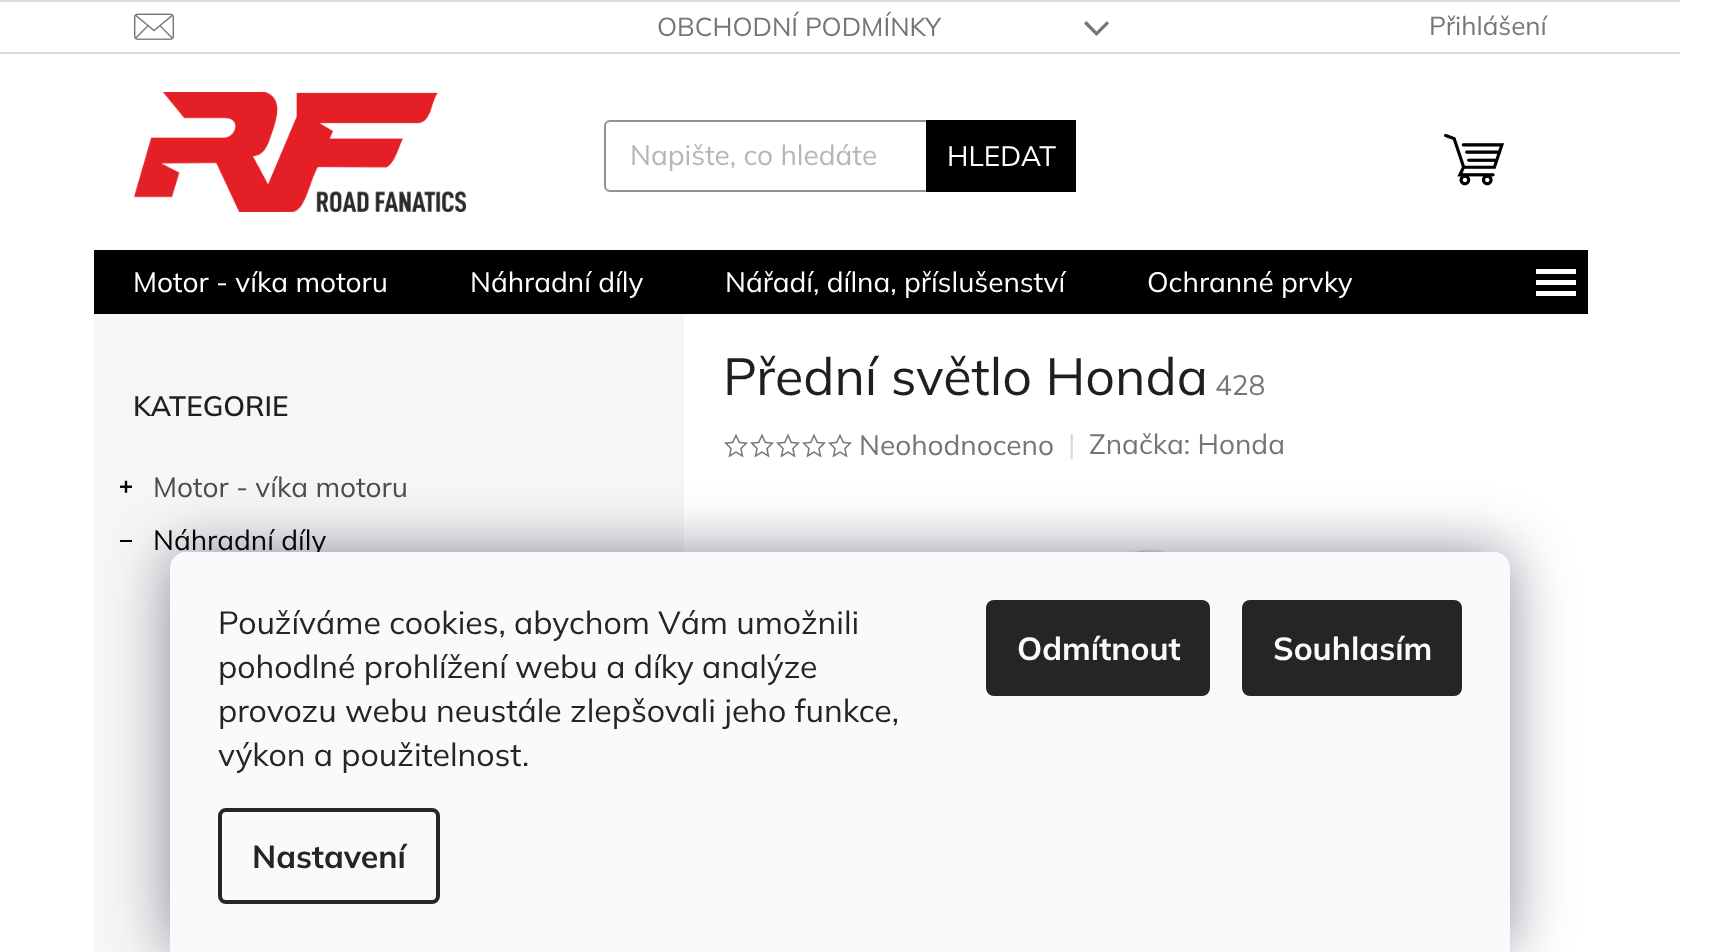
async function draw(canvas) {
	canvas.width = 1710;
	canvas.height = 952;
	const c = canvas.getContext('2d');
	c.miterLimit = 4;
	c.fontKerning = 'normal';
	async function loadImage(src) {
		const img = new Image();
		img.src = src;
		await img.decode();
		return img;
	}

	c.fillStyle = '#fff';
	c.fillRect(0, 0, 1710, 952);
	c.fillStyle = '#dadada';
	c.fillRect(0, 0, 1680, 2);
	c.fillRect(0, 52, 1680, 2);
	c.drawImage(await loadImage('img1.png'), 134, 13, 40, 27);
	c.font = '26px Mulish';
	c.fillStyle = '#767676';
	c.fillText('OBCHODNÍ PODMÍNKY', 657, 36);
	c.beginPath();
	c.moveTo(1084, 23.5);
	c.lineTo(1086.5, 21);
	c.lineTo(1096.5, 31.5);
	c.lineTo(1107, 21);
	c.lineTo(1109, 23.5);
	c.lineTo(1096.5, 36);
	c.closePath();
	c.fill();
	c.fillText('Přihlášení', 1429, 35);
	c.drawImage(await loadImage('img2.png'), 134, 92, 332, 120);
	c.beginPath();
	c.roundRect(605, 121, 470, 70, 5);
	c.strokeStyle = '#919191';
	c.lineWidth = 2;
	c.stroke();
	c.font = '28px Mulish';
	c.fillStyle = '#b6b6b6';
	c.fillText('Napište, co hledáte', 630, 165);
	c.fillStyle = '#000';
	c.fillRect(926, 120, 150, 72);
	c.fillStyle = '#fff';
	c.fillText('HLEDAT', 947, 166);
	c.drawImage(await loadImage('img3.png'), 1444, 133, 60, 53);
	c.fillStyle = '#000';
	c.fillRect(94, 250, 1494, 64);
	c.fillStyle = '#fff';
	for (const [text, x, y] of [
		['Motor - víka motoru', 133, 292],
		['Náhradní díly', 470, 292],
		['Nářadí, dílna, příslušenství', 725, 292],
		['Ochranné prvky', 1147, 292],
	]) {
		c.fillText(text, x, y);
	}
	c.beginPath();
	c.moveTo(1536, 296);
	c.lineTo(1576, 296);
	c.lineTo(1576, 291);
	c.lineTo(1536, 291);
	c.closePath();
	c.moveTo(1536, 285);
	c.lineTo(1576, 285);
	c.lineTo(1576, 280);
	c.lineTo(1536, 280);
	c.closePath();
	c.moveTo(1536, 269);
	c.lineTo(1536, 274);
	c.lineTo(1576, 274);
	c.lineTo(1576, 269);
	c.closePath();
	c.fill();
	c.fillStyle = '#f6f6f6';
	c.fillRect(94, 314, 590, 638);
	c.font = '600 28px Mulish';
	c.fillStyle = '#1f1f1f';
	c.fillText('KATEGORIE', 133, 416);
	c.drawImage(await loadImage('img4.png'), 120, 480, 12, 13);
	c.font = '28px Mulish';
	c.fillStyle = '#4d4d4d';
	c.fillText('Motor - víka motoru', 153, 497);
	c.fillStyle = '#000';
	c.fillRect(120, 540, 12, 2);
	c.fillText('Náhradní díly', 153, 550);
	c.font = '52px Mulish';
	c.fillStyle = '#1f1f1f';
	c.fillText('Přední světlo Honda', 723, 395);
	c.font = '28px Mulish';
	c.fillStyle = '#767676';
	c.fillText('428', 1215, 395);
	c.drawImage(await loadImage('img5.png'), 724, 433, 24, 25);
	c.drawImage(await loadImage('img5.png'), 750, 433, 24, 25);
	c.drawImage(await loadImage('img5.png'), 776, 433, 24, 25);
	c.drawImage(await loadImage('img5.png'), 802, 433, 24, 25);
	c.drawImage(await loadImage('img5.png'), 828, 433, 24, 25);
	c.fillText('Neohodnoceno', 859, 455);
	c.fillStyle = '#dadada';
	c.fillText('|', 1068, 454);
	c.fillStyle = '#767676';
	c.fillText('Značka: Honda', 1089, 454);
	c.drawImage(await loadImage('img6.png'), 877, 549, 503, 3);
	c.fillStyle = '#1b193980';
	c.filter = 'blur(30px)';
	c.beginPath();
	c.roundRect(170, 552, 1340, 400, 16);
	c.fill();
	c.filter = 'none';
	c.fillStyle = '#f8fafb';
	c.beginPath();
	c.roundRect(170, 552, 1340, 400, [16, 16, 0, 0]);
	c.fill();
	c.font = '32px Mulish';
	c.fillStyle = '#252525';
	for (const [text, x, y] of [
		['Používáme cookies, abychom Vám umožnili', 218, 634],
		['pohodlné prohlížení webu a díky analýze', 218, 678],
		['provozu webu neustále zlepšovali jeho funkce,', 218, 722],
		['výkon a použitelnost.', 218, 766],
	]) {
		c.fillText(text, x, y);
	}
	c.beginPath();
	c.roundRect(220, 810, 218, 92, 6);
	c.strokeStyle = '#252525';
	c.lineWidth = 4;
	c.stroke();
	c.font = 'bold 32px Mulish';
	c.fillText('Nastavení', 252, 868);
	c.beginPath();
	c.roundRect(986, 600, 224, 96, 8);
	c.fill();
	c.fillStyle = '#f8fafb';
	c.fillText('Odmítnout', 1017, 660);
	c.fillStyle = '#252525';
	c.beginPath();
	c.roundRect(1242, 600, 220, 96, 8);
	c.fill();
	c.fillStyle = '#f8fafb';
	c.fillText('Souhlasím', 1273, 660);
}

draw(document.querySelector('canvas'));
